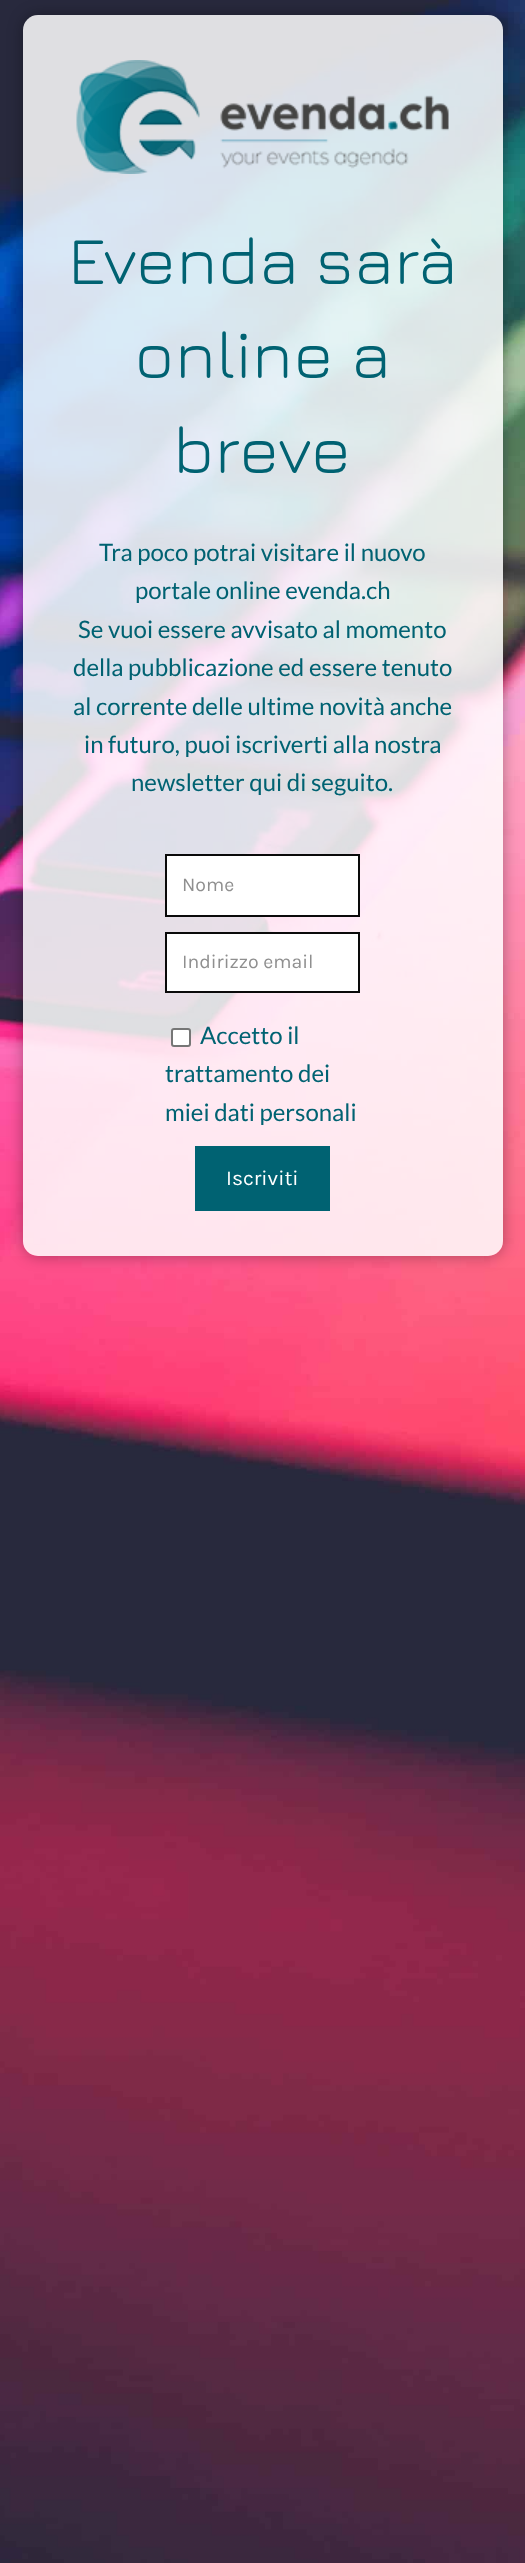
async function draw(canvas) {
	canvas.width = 525;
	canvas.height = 2563;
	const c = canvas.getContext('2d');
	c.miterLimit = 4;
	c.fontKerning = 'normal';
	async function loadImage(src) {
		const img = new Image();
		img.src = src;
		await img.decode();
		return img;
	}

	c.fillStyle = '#fff';
	c.fillRect(0, 0, 525, 2563);
	c.drawImage(await loadImage('img1.png'), 0, 0, 525, 2563);
	c.save();
	c.beginPath();
	c.moveTo(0, 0);
	c.lineTo(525, 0);
	c.lineTo(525, 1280);
	c.lineTo(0, 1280);
	c.closePath();
	c.moveTo(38, 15);
	c.lineTo(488, 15);
	c.bezierCurveTo(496.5, 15, 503, 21.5, 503, 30);
	c.lineTo(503, 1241);
	c.bezierCurveTo(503, 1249.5, 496.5, 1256, 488, 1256);
	c.lineTo(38, 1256);
	c.bezierCurveTo(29.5, 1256, 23, 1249.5, 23, 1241);
	c.lineTo(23, 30);
	c.bezierCurveTo(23, 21.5, 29.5, 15, 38, 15);
	c.closePath();
	c.clip('evenodd');
	c.fillStyle = '#00000054';
	c.filter = 'blur(7.5px)';
	c.beginPath();
	c.roundRect(23, 15, 480, 1241, 15);
	c.fill();
	c.filter = 'none';
	c.restore();
	c.fillStyle = '#ffffffd9';
	c.beginPath();
	c.roundRect(23, 15, 480, 1241, 15);
	c.fill();
	c.drawImage(await loadImage('img2.png'), 76, 60, 373, 114);
	c.font = '300 67.5px Jura';
	c.fillStyle = '#006272';
	for (const [text, x, y] of [
		['Evenda sarà', 68, 284],
		['online a', 134, 378],
		['breve', 173, 473],
	]) {
		c.fillText(text, x, y);
	}
	c.font = '24px Lato';
	for (const [text, x, y] of [
		['Tra poco potrai visitare il nuovo', 99, 561],
		['portale online evenda.ch', 135, 599],
		['Se vuoi essere avvisato al momento', 78, 638],
		['della pubblicazione ed essere tenuto', 73, 676],
		['al corrente delle ultime novità anche', 73, 715],
		['in futuro, puoi iscriverti alla nostra', 84, 753],
		['newsletter qui di seguito.', 131, 791],
	]) {
		c.fillText(text, x, y);
	}
	c.fillStyle = '#fff';
	c.beginPath();
	c.rect(166, 855, 193, 61);
	c.fill();
	c.strokeStyle = '#0a0a0a';
	c.lineWidth = 2;
	c.stroke();
	c.font = '19.5px Karla';
	c.fillStyle = '#8f8f8f';
	c.fillText('Nome', 182, 891);
	c.fillStyle = '#fff';
	c.beginPath();
	c.rect(166, 933, 193, 59);
	c.fill();
	c.stroke();
	c.fillStyle = '#8f8f8f';
	c.fillText('Indirizzo email', 182, 968);
	c.fillStyle = '#fff';
	c.beginPath();
	c.roundRect(172, 1029, 18, 17, 2);
	c.fill();
	c.strokeStyle = '#767676';
	c.stroke();
	c.font = '24px Lato';
	c.fillStyle = '#006272';
	for (const [text, x, y] of [
		['Accetto il', 200, 1044],
		['trattamento dei', 165, 1082],
		['miei dati personali', 165, 1121],
	]) {
		c.fillText(text, x, y);
	}
	c.fillRect(195, 1146, 135, 65);
	c.font = '21px Karla';
	c.fillStyle = '#fff';
	c.fillText('Iscriviti', 226, 1185);
}

draw(document.querySelector('canvas'));
